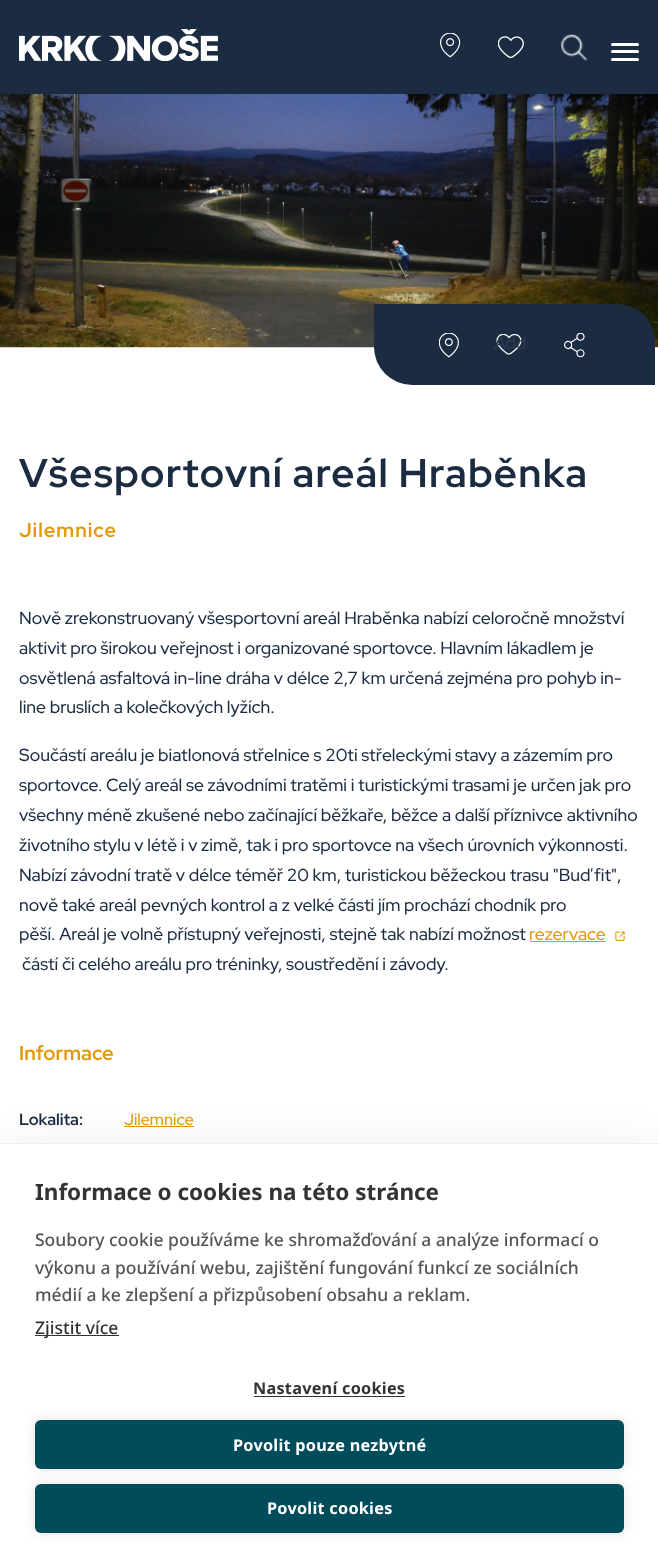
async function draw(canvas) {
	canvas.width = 658;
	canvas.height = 1567;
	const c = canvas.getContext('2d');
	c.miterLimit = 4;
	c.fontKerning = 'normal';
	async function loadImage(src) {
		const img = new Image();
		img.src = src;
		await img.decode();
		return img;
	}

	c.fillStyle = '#fff';
	c.fillRect(0, 0, 658, 1567);
	c.fillStyle = '#1b2c42';
	c.fillRect(0, 0, 658, 94);
	c.drawImage(await loadImage('img1.png'), 19, 29, 199, 32);
	c.drawImage(await loadImage('img2.png'), 440, 33, 21, 25);
	c.drawImage(await loadImage('img3.png'), 498, 36, 26, 22);
	c.drawImage(await loadImage('img4.png'), 561, 34, 27, 27);
	c.fillStyle = '#fff';
	c.beginPath();
	c.roundRect(611, 43, 28, 3, 1.5);
	c.fill();
	c.beginPath();
	c.roundRect(611, 50, 28, 3, 1.5);
	c.fill();
	c.beginPath();
	c.roundRect(611, 58, 28, 3, 1.5);
	c.fill();
	c.drawImage(await loadImage('img5.png'), 0, 94, 658, 254);
	c.fillStyle = '#1b2c42';
	c.beginPath();
	c.roundRect(374, 304, 281, 81, [0, 38, 0, 38]);
	c.fill();
	c.drawImage(await loadImage('img6.png'), 439, 333, 20, 25);
	c.drawImage(await loadImage('img7.png'), 496, 334, 26, 21);
	c.font = '500 17.5px Red Hat Display';
	c.fillStyle = '#2d3c51';
	c.fillText('Add', 494, 349);
	c.drawImage(await loadImage('img8.png'), 564, 333, 21, 25);
	c.letterSpacing = '1.25px';
	c.font = 'bold 40px Red Hat Display';
	c.fillStyle = '#1b2c42';
	c.fillText('Všesportovní areál Hraběnka', 19, 487);
	c.letterSpacing = '1px';
	c.font = 'bold 20px Red Hat Display';
	c.fillStyle = '#e39805';
	c.fillText('Jilemnice', 19, 537);
	c.letterSpacing = '0px';
	c.font = '500 17.5px Red Hat Display';
	c.fillStyle = '#1b2c42';
	for (const [text, x, y] of [
		['Nově zrekonstruovaný všesportovní areál Hraběnka nabízí celoročně množství', 19, 624],
		['aktivit pro širokou veřejnost i organizované sportovce. Hlavním lákadlem je', 19, 654],
		['osvětlená asfaltová in-line dráha v délce 2,7 km určená zejména pro pohyb in-', 19, 684],
		['line bruslích a kolečkových lyžích.', 19, 713],
		['Součástí areálu je biatlonová střelnice s 20ti střeleckými stavy a zázemím pro', 19, 761],
		['sportovce. Celý areál se závodními tratěmi i turistickými trasami je určen jak pro', 19, 791],
		['všechny méně zkušené nebo začínající běžkaře, běžce a další příznivce aktivního', 19, 821],
		['životního stylu v létě i v zimě, tak i pro sportovce na všech úrovních výkonnosti.', 19, 851],
		['Nabízí závodní tratě v délce téměř 20 km, turistickou běžeckou trasu "Buď fit",', 19, 881],
		['nově také areál pevných kontrol a z velké části jím prochází chodník pro', 19, 911],
		['pěší. Areál je volně přístupný veřejnosti, stejně tak nabízí možnost', 19, 940],
	]) {
		c.fillText(text, x, y);
	}
	c.fillStyle = '#e39805';
	c.fillText('rezervace', 529, 940);
	c.fillRect(530, 941, 76, 1);
	c.drawImage(await loadImage('img9.png'), 615, 931, 10, 10);
	c.fillStyle = '#1b2c42';
	c.fillText('částí či celého areálu pro tréninky, soustředění i závody.', 22, 970);
	c.font = 'bold 20px Red Hat Display';
	c.fillStyle = '#e39805';
	c.fillText('Informace', 19, 1060);
	c.font = 'bold 16.25px Red Hat Display';
	c.fillStyle = '#1b2c42';
	c.fillText('Lokalita:', 19, 1125);
	c.font = '500 16.25px Red Hat Display';
	c.fillStyle = '#e39805';
	c.fillText('Jilemnice', 124, 1125);
	c.fillRect(124, 1126, 70, 1);
	c.fillStyle = '#0000001a';
	c.filter = 'blur(25px)';
	c.beginPath();
	c.rect(0, 1155, 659, 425);
	c.fill();
	c.filter = 'none';
	c.fillStyle = '#fff';
	c.fillRect(0, 1144, 658, 423);
	c.fillStyle = '#eee';
	c.fillRect(0, 1143, 658, 1);
	c.font = 'bold 22.5px Noto Sans';
	c.fillStyle = '#333';
	c.fillText('Informace o cookies na této stránce', 35, 1200);
	c.font = '500 17.5px Noto Sans';
	c.fillStyle = '#555';
	for (const [text, x, y] of [
		['Soubory cookie používáme ke shromažďování a analýze informací o', 35, 1246],
		['výkonu a používání webu, zajištění fungování funkcí ze sociálních', 35, 1274],
		['médií a ke zlepšení a přizpůsobení obsahu a reklam.', 35, 1301],
	]) {
		c.fillText(text, x, y);
	}
	c.fillStyle = '#333';
	c.fillRect(35, 1335, 84, 1);
	c.fillText('Zjistit více', 35, 1334);
	c.letterSpacing = '0.25px';
	c.font = 'bold 16.25px Noto Sans';
	c.fillText('Nastavení cookies', 253, 1394);
	c.fillRect(254, 1396, 151, 1);
	c.fillStyle = '#0000001f';
	c.filter = 'blur(6px)';
	c.beginPath();
	c.roundRect(35, 1420, 589, 49, 6);
	c.fill();
	c.filter = 'none';
	c.fillStyle = '#004c5a';
	c.beginPath();
	c.roundRect(35, 1420, 589, 49, 6);
	c.fill();
	c.fillStyle = '#fff';
	c.fillText('Povolit pouze nezbytné', 233, 1451);
	c.fillStyle = '#0000001f';
	c.filter = 'blur(6px)';
	c.beginPath();
	c.roundRect(35, 1484, 589, 49, 6);
	c.fill();
	c.filter = 'none';
	c.fillStyle = '#004c5a';
	c.beginPath();
	c.roundRect(35, 1484, 589, 49, 6);
	c.fill();
	c.fillStyle = '#fff';
	c.fillText('Povolit cookies', 267, 1514);
}

draw(document.querySelector('canvas'));
